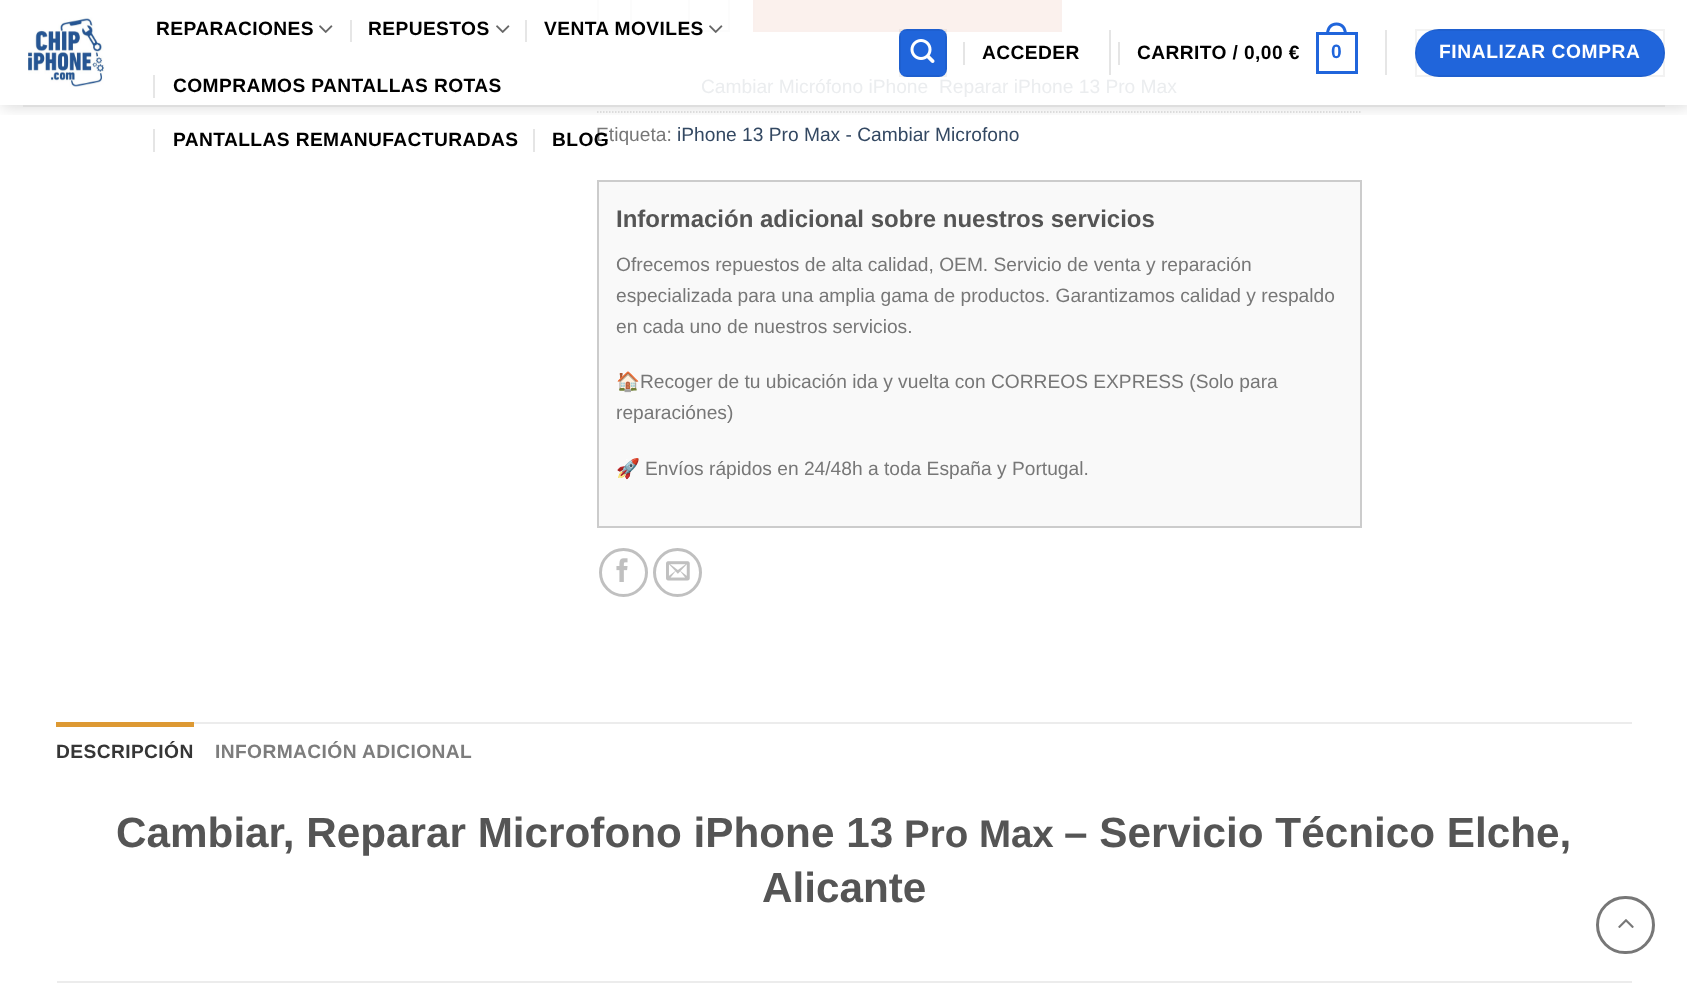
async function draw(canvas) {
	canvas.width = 1687;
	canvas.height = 983;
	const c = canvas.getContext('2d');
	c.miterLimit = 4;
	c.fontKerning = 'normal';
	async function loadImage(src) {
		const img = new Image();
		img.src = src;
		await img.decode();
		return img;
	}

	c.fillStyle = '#fff';
	c.fillRect(0, 0, 1687, 983);
	c.fillStyle = '#fcfcfc';
	c.fillRect(597, 30, 33, 2);
	c.fillRect(597, 0, 2, 32);
	c.strokeStyle = '#fcfcfc';
	c.lineWidth = 2;
	c.strokeRect(631, -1, 58, 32);
	c.fillRect(728, 0, 2, 32);
	c.fillRect(690, 30, 39, 2);
	c.fillStyle = '#fbf1ed';
	c.beginPath();
	c.rect(754, -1, 307, 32);
	c.fill();
	c.strokeStyle = '#faf0ed';
	c.stroke();
	c.beginPath();
	c.moveTo(597, 112);
	c.lineTo(1362, 112);
	c.strokeStyle = '#ddd';
	c.lineWidth = 1.5;
	c.setLineDash([1.5, 1.5]);
	c.stroke();
	c.save();
	c.beginPath();
	c.rect(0, 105, 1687, 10);
	c.clip();
	c.fillStyle = '#00000026';
	c.filter = 'blur(7.5px)';
	c.beginPath();
	c.rect(2, 2, 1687, 105);
	c.fill();
	c.filter = 'none';
	c.restore();
	c.drawImage(await loadImage('img1.png'), 28, 17, 77, 70);
	c.letterSpacing = '0.4px';
	c.font = 'bold 19.2px Liberation Sans';
	c.fillStyle = '#000';
	c.fillText('REPARACIONES', 156, 35);
	c.drawImage(await loadImage('img2.png'), 319, 25, 14, 8);
	c.fillStyle = '#e6e6e6';
	c.fillRect(350, 20, 2, 22);
	c.fillStyle = '#000';
	c.fillText('REPUESTOS', 368, 35);
	c.drawImage(await loadImage('img2.png'), 496, 25, 14, 8);
	c.fillStyle = '#e6e6e6';
	c.fillRect(525, 20, 2, 22);
	c.fillStyle = '#000';
	c.fillText('VENTA MOVILES', 544, 35);
	c.drawImage(await loadImage('img3.png'), 709, 25, 14, 8);
	c.fillStyle = '#e6e6e6';
	c.fillRect(153, 75, 2, 23);
	c.fillStyle = '#000';
	c.fillText('COMPRAMOS PANTALLAS ROTAS', 173, 92);
	c.fillStyle = '#e5e5e5';
	c.fillRect(153, 129, 2, 23);
	c.fillStyle = '#000';
	c.fillText('PANTALLAS REMANUFACTURADAS', 173, 146);
	c.fillStyle = '#e5e5e5';
	c.fillRect(533, 129, 2, 23);
	c.letterSpacing = '0px';
	c.font = '19.2px Liberation Sans';
	c.fillStyle = '#777';
	c.fillText('Etiqueta:', 596, 141);
	c.letterSpacing = '0.4px';
	c.font = 'bold 19.2px Liberation Sans';
	c.fillStyle = '#000';
	c.fillText('BLOG', 552, 146);
	c.fillStyle = '#2065db';
	c.beginPath();
	c.roundRect(899, 29, 48, 48, 8);
	c.fill();
	c.strokeStyle = '#0000000d';
	c.lineWidth = 2;
	c.setLineDash([]);
	c.strokeRect(900, 30, 46, 46);
	c.drawImage(await loadImage('img4.png'), 910, 39, 25, 24);
	c.fillStyle = '#0000001a';
	c.fillRect(963, 42, 2, 23);
	c.fillStyle = '#000';
	c.fillText('ACCEDER', 982, 59);
	c.fillStyle = '#0000001a';
	c.fillRect(1109, 30, 2, 45);
	c.fillRect(1118, 42, 2, 23);
	c.fillStyle = '#000';
	c.fillText('CARRITO / 0,00 €', 1137, 59);
	c.strokeStyle = '#2065db';
	c.lineWidth = 3;
	c.strokeRect(1317.5, 33.5, 39, 39);
	c.fillStyle = '#2065db';
	c.beginPath();
	c.moveTo(1336.5, 22.5);
	c.bezierCurveTo(1343.5, 22.5, 1347, 28, 1347, 34.5);
	c.lineTo(1326, 34.5);
	c.bezierCurveTo(1326, 28, 1329.5, 22.5, 1336.5, 22.5);
	c.closePath();
	c.moveTo(1336.5, 25.5);
	c.bezierCurveTo(1342, 25.5, 1344, 30, 1344, 34.5);
	c.lineTo(1329, 34.5);
	c.bezierCurveTo(1329, 30, 1331, 25.5, 1336.5, 25.5);
	c.closePath();
	c.fill('evenodd');
	c.fillText('0', 1331, 58);
	c.fillStyle = '#e6e6e6';
	c.fillRect(1385, 30, 2, 45);
	c.fillStyle = '#2065db';
	c.beginPath();
	c.roundRect(1415, 29, 250, 48, 24);
	c.fill();
	c.strokeStyle = '#0000000d';
	c.lineWidth = 2;
	c.strokeRect(1416, 30, 248, 46);
	c.letterSpacing = '0.6px';
	c.fillStyle = '#fff';
	c.fillText('FINALIZAR COMPRA', 1439, 58);
	c.fillStyle = '#dedede';
	c.fillRect(23, 105, 1642, 2);
	c.letterSpacing = '0px';
	c.font = '19.2px Liberation Sans';
	c.fillStyle = '#ebedef';
	c.fillText('Cambiar Micrófono iPhone', 701, 93);
	c.fillText('Reparar iPhone 13 Pro Max', 939, 93);
	c.fillStyle = '#334862';
	c.fillText('iPhone 13 Pro Max - Cambiar Microfono', 677, 141);
	c.fillStyle = '#f9f9f9';
	c.beginPath();
	c.rect(598, 181, 763, 346);
	c.fill();
	c.strokeStyle = '#ccc';
	c.stroke();
	c.font = 'bold 24px Liberation Sans';
	c.fillStyle = '#555';
	c.fillText('Información adicional sobre nuestros servicios', 616, 227);
	c.font = '19.2px Liberation Sans';
	c.fillStyle = '#777';
	for (const [text, x, y] of [
		['Ofrecemos repuestos de alta calidad, OEM. Servicio de venta y reparación', 616, 271],
		['especializada para una amplia gama de productos. Garantizamos calidad y respaldo', 616, 302],
		['en cada uno de nuestros servicios.', 616, 333],
	]) {
		c.fillText(text, x, y);
	}
	c.font = '19.2px Noto Color Emoji';
	c.fillText('🏠', 616, 388);
	c.font = '19.2px Liberation Sans';
	c.fillText('Recoger de tu ubicación ida y vuelta con CORREOS EXPRESS (Solo para', 640, 388);
	c.fillText('reparaciónes)', 616, 419);
	c.font = '19.2px Noto Color Emoji';
	c.fillText('🚀', 616, 475);
	c.font = '19.2px Liberation Sans';
	c.fillText('Envíos rápidos en 24/48h a toda España y Portugal.', 645, 475);
	c.beginPath();
	c.arc(623.5, 572.5, 23, 0, 2 * Math.PI);
	c.strokeStyle = '#c0c0c0';
	c.lineWidth = 3;
	c.stroke();
	c.drawImage(await loadImage('img5.png'), 616, 558, 12, 24);
	c.beginPath();
	c.arc(677.5, 572.5, 23, 0, 2 * Math.PI);
	c.stroke();
	c.drawImage(await loadImage('img6.png'), 666, 561, 24, 20);
	c.fillStyle = '#ececec';
	c.fillRect(194, 722, 1438, 2);
	c.fillStyle = '#d93';
	c.fillRect(56, 722, 138, 5);
	c.letterSpacing = '0.4px';
	c.font = 'bold 19.2px Liberation Sans';
	c.fillStyle = '#363636';
	c.fillText('DESCRIPCIÓN', 56, 758);
	c.fillStyle = '#7d7d7d';
	c.fillText('INFORMACIÓN ADICIONAL', 215, 758);
	c.letterSpacing = '0px';
	c.font = 'bold 42.25px Liberation Sans';
	c.fillStyle = '#555';
	c.fillText('Cambiar, Reparar Microfono iPhone 13', 116, 847);
	c.font = 'bold 38.5px Liberation Sans';
	c.fillText('Pro Max', 904, 847);
	c.font = 'bold 42.25px Liberation Sans';
	c.fillText('– Servicio Técnico Elche,', 1064, 847);
	c.fillText('Alicante', 762, 902);
	c.fillStyle = '#ececec';
	c.fillRect(57, 981, 1575, 2);
	c.beginPath();
	c.roundRect(1597.5, 897.5, 56, 55, 27.5);
	c.strokeStyle = '#777';
	c.stroke();
	c.drawImage(await loadImage('img7.png'), 1618, 919, 16, 9);
}

draw(document.querySelector('canvas'));
